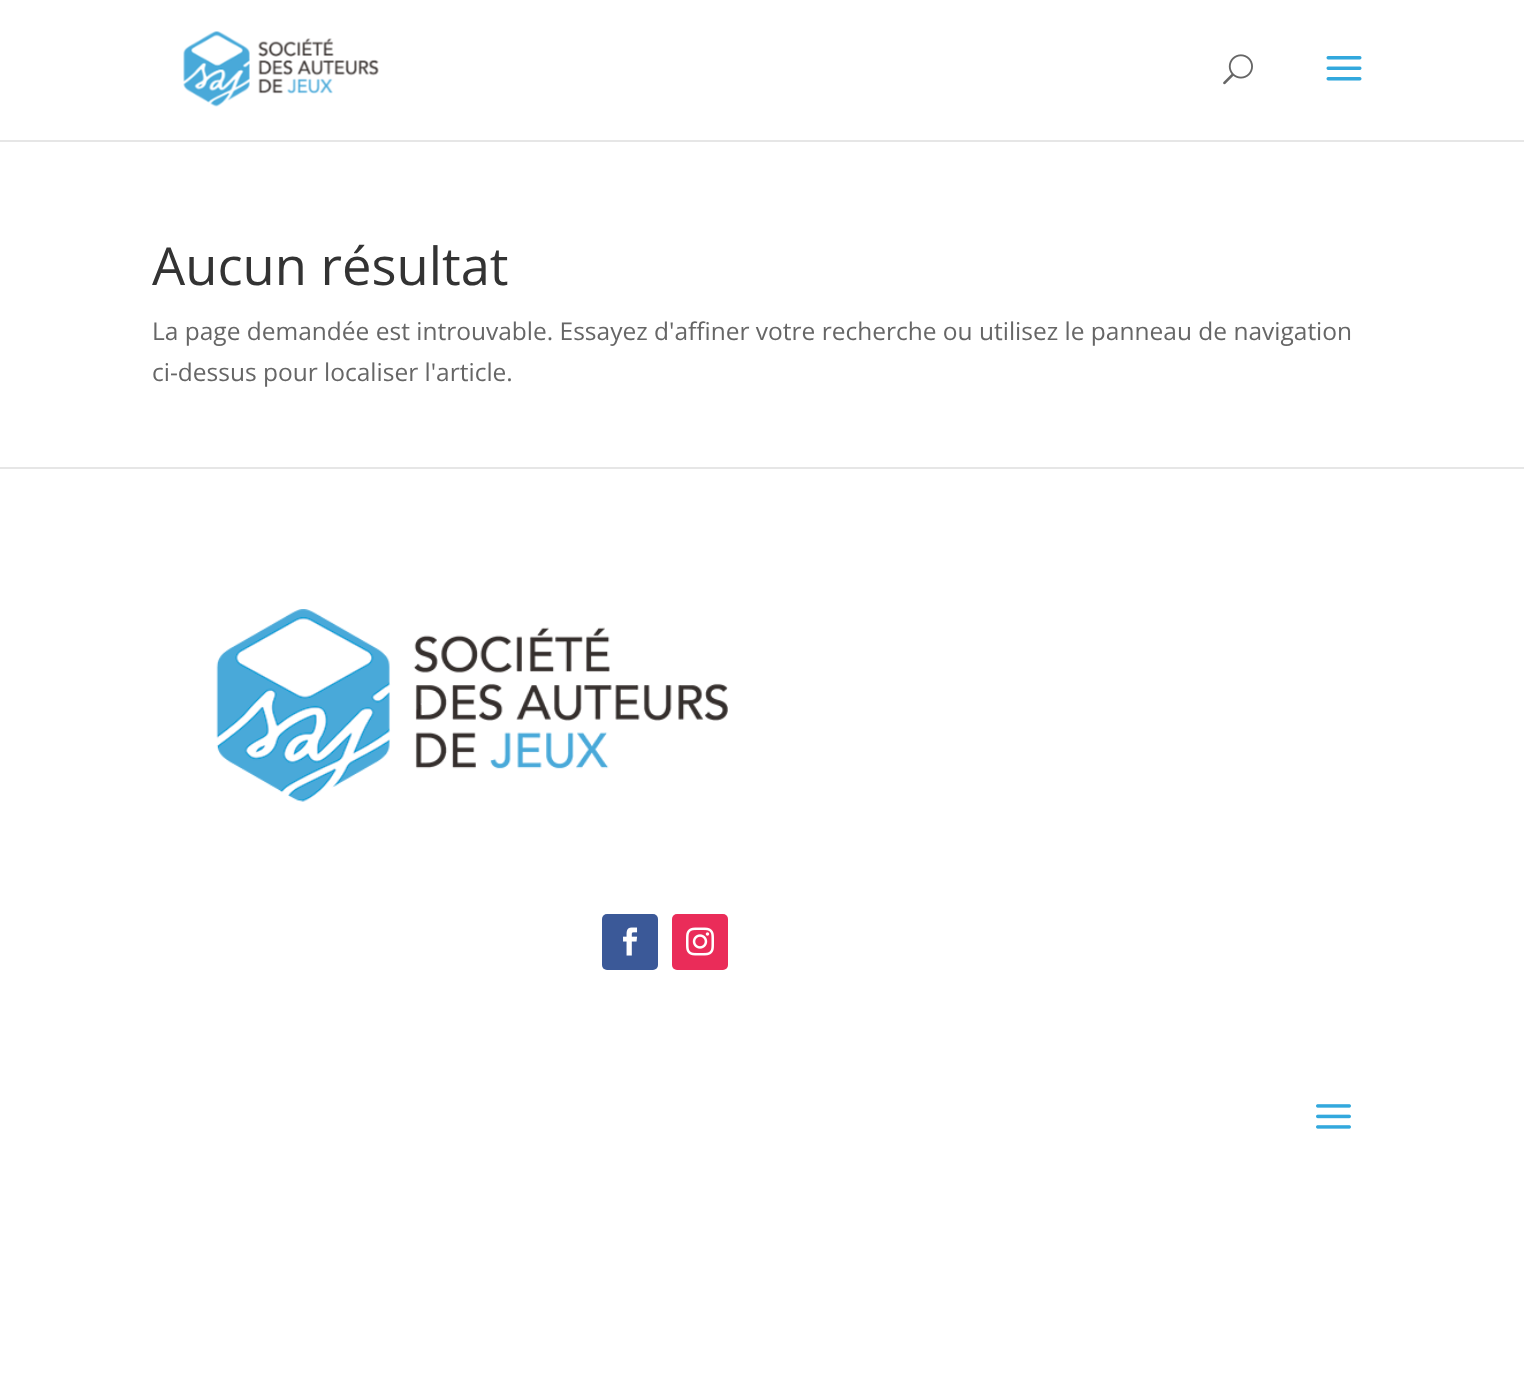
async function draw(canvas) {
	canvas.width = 1524;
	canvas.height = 1400;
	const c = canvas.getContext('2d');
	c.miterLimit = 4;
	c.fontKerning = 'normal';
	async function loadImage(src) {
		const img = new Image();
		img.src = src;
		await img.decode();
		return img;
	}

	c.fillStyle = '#fff';
	c.fillRect(0, 0, 1524, 1400);
	c.fillStyle = '#e6e6e6';
	c.fillRect(0, 140, 1524, 2);
	c.drawImage(await loadImage('img1.png'), 183, 31, 196, 76);
	c.drawImage(await loadImage('img2.png'), 1223, 54, 30, 31);
	c.drawImage(await loadImage('img3.png'), 1326, 56, 36, 25);
	c.font = '52.5px Open Sans';
	c.fillStyle = '#333';
	c.fillText('Aucun résultat', 152, 285);
	c.font = '24.5px Open Sans';
	c.fillStyle = '#666';
	c.fillText('La page demandée est introuvable. Essayez d\'affiner votre recherche ou utilisez le panneau de navigation', 152, 340);
	c.fillText('ci-dessus pour localiser l\'article.', 152, 381);
	c.fillStyle = '#e6e6e6';
	c.fillRect(0, 467, 1524, 2);
	c.drawImage(await loadImage('img4.png'), 216, 609, 512, 193);
	c.fillStyle = '#3b5998';
	c.beginPath();
	c.roundRect(602, 914, 56, 56, 5);
	c.fill();
	c.drawImage(await loadImage('img5.png'), 623, 927, 15, 29);
	c.fillStyle = '#ea2c59';
	c.beginPath();
	c.roundRect(672, 914, 56, 56, 5);
	c.fill();
	c.drawImage(await loadImage('img6.png'), 686, 927, 28, 29);
	c.drawImage(await loadImage('img7.png'), 1316, 1104, 35, 25);
}

draw(document.querySelector('canvas'));
